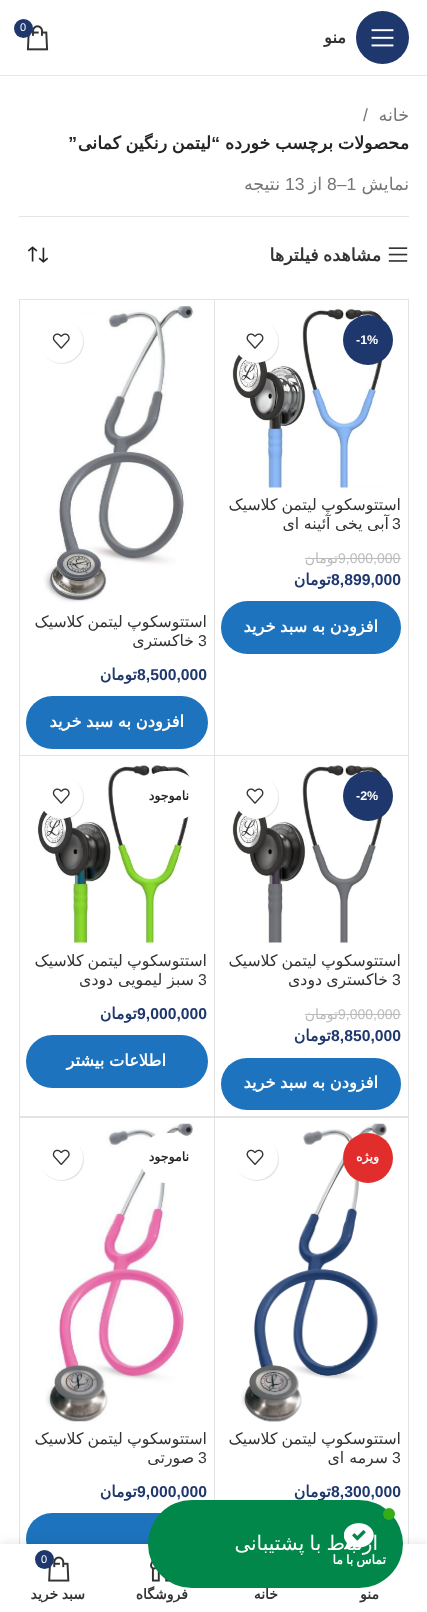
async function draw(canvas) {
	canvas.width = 427;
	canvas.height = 1612;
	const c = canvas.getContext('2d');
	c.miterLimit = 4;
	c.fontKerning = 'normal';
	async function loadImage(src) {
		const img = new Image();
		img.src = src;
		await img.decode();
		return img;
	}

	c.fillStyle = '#fff';
	c.fillRect(0, 0, 427, 1612);
	c.fillStyle = '#e6e6e6';
	c.fillRect(0, 75, 427, 1);
	c.drawImage(await loadImage('img1.png'), 26, 25, 23, 26);
	c.fillStyle = '#1e376d';
	c.beginPath();
	c.arc(23.5, 28.5, 9.5, 0, 2 * Math.PI);
	c.fill();
	c.font = '11px Liberation Sans';
	c.fillStyle = '#fff';
	c.fillText('0', 20, 31);
	c.fillStyle = '#1e376d';
	c.beginPath();
	c.arc(382.5, 37.5, 26.5, 0, 2 * Math.PI);
	c.fill();
	c.drawImage(await loadImage('img2.png'), 371, 29, 23, 18);
	c.direction = 'rtl';
	c.font = 'bold 16.25px DejaVu Sans';
	c.fillStyle = '#333';
	c.fillText('منو', 346, 43);
	c.fillStyle = '#e4e4e4';
	c.fillRect(19, 216, 390, 1);
	c.font = '17.5px DejaVu Sans';
	c.fillStyle = '#767676';
	c.fillText('خانه', 409, 121);
	c.direction = 'ltr';
	c.font = '17.5px Liberation Sans';
	c.fillText('/', 363, 121);
	c.wordSpacing = '-1px';
	c.direction = 'rtl';
	c.font = 'bold 17.5px DejaVu Sans';
	c.fillStyle = '#242424';
	c.fillText('محصولات برچسب خورده', 409, 149);
	c.wordSpacing = '0px';
	c.font = 'bold 17.5px Liberation Sans';
	c.fillText('“', 220, 149);
	c.wordSpacing = '-1px';
	c.font = 'bold 17.5px DejaVu Sans';
	c.fillText('لیتمن رنگین کمانی', 211, 149);
	c.wordSpacing = '0px';
	c.font = 'bold 17.5px Liberation Sans';
	c.fillText('”', 77, 149);
	c.font = '17.5px DejaVu Sans';
	c.fillStyle = '#767676';
	c.fillText('نمایش', 409, 190);
	c.direction = 'ltr';
	c.font = '17.5px Liberation Sans';
	c.fillText('8–1', 327, 190);
	c.direction = 'rtl';
	c.font = '17.5px DejaVu Sans';
	c.fillText('از', 322, 190);
	c.direction = 'ltr';
	c.font = '17.5px Liberation Sans';
	c.fillText('13', 285, 190);
	c.direction = 'rtl';
	c.font = '17.5px DejaVu Sans';
	c.fillText('نتیجه', 280, 190);
	c.drawImage(await loadImage('img3.png'), 388, 247, 20, 15);
	c.wordSpacing = '-1px';
	c.font = 'bold 17.5px DejaVu Sans';
	c.fillStyle = '#333';
	c.fillText('مشاهده فیلترها', 381, 261);
	c.drawImage(await loadImage('img4.png'), 27, 246, 22, 17);
	c.fillStyle = '#e4e4e4';
	c.fillRect(408, 299, 1, 1245);
	c.beginPath();
	c.moveTo(214, 299);
	c.lineTo(408, 299);
	c.lineTo(408, 300);
	c.lineTo(215, 300);
	c.closePath();
	c.fill();
	c.beginPath();
	c.moveTo(408, 756);
	c.lineTo(214, 756);
	c.lineTo(215, 755);
	c.lineTo(408, 755);
	c.closePath();
	c.fill();
	c.fillStyle = '#0000001c';
	c.beginPath();
	c.moveTo(214, 756);
	c.lineTo(214, 299);
	c.lineTo(215, 300);
	c.lineTo(215, 755);
	c.closePath();
	c.fill();
	c.drawImage(await loadImage('img5.png'), 232, 308, 154, 180);
	c.fillStyle = '#1e376d';
	c.beginPath();
	c.arc(368, 340, 25, 0, 2 * Math.PI);
	c.fill();
	c.wordSpacing = '0px';
	c.direction = 'ltr';
	c.font = 'bold 12.5px Liberation Sans';
	c.fillStyle = '#fff';
	c.fillText('-1%', 356, 344);
	c.fillStyle = '#0000001a';
	c.filter = 'blur(0.5px)';
	c.beginPath();
	c.roundRect(235, 320, 44, 44, 22);
	c.fill();
	c.filter = 'none';
	c.fillStyle = '#fff';
	c.beginPath();
	c.arc(256, 341, 22, 0, 2 * Math.PI);
	c.fill();
	c.drawImage(await loadImage('img6.png'), 246, 333, 18, 16);
	c.save();
	c.beginPath();
	c.rect(221, 496, 180, 45);
	c.clip();
	c.wordSpacing = '-1px';
	c.direction = 'rtl';
	c.font = '15.75px DejaVu Sans';
	c.fillStyle = '#333';
	c.fillText('استتوسکوپ لیتمن کلاسیک', 401, 510);
	c.restore();
	c.font = '15.75px Liberation Sans';
	c.fillStyle = '#333';
	c.fillText('3', 392, 529);
	c.wordSpacing = '-0.5px';
	c.direction = 'rtl';
	c.font = '15.75px DejaVu Sans';
	c.fillText('آبی یخی آئینه ای', 389, 529);
	c.wordSpacing = '0px';
	c.direction = 'ltr';
	c.font = '14px Liberation Sans';
	c.fillStyle = '#bbb';
	c.fillText('9,000,000', 338, 563);
	c.fillRect(339, 558, 62, 1);
	c.fillRect(305, 558, 34, 1);
	c.direction = 'rtl';
	c.font = '14px DejaVu Sans';
	c.fillText('تومان', 338, 563);
	c.direction = 'ltr';
	c.font = 'bold 15.75px Liberation Sans';
	c.fillStyle = '#1e376d';
	c.fillText('8,899,000', 331, 585);
	c.direction = 'rtl';
	c.font = 'bold 15.75px DejaVu Sans';
	c.fillText('تومان', 331, 585);
	c.fillStyle = '#1e73be';
	c.beginPath();
	c.roundRect(221, 601, 180, 53, 26.5);
	c.fill();
	c.wordSpacing = '-0.5px';
	c.font = 'bold 16.25px DejaVu Sans';
	c.fillStyle = '#fff';
	c.fillText('افزودن به سبد خرید', 378, 632);
	c.fillStyle = '#e4e4e4';
	c.beginPath();
	c.moveTo(19, 299);
	c.lineTo(214, 299);
	c.lineTo(214, 300);
	c.lineTo(20, 300);
	c.closePath();
	c.fill();
	c.beginPath();
	c.moveTo(214, 756);
	c.lineTo(19, 756);
	c.lineTo(20, 755);
	c.lineTo(214, 755);
	c.closePath();
	c.fill();
	c.fillStyle = '#0000001c';
	c.beginPath();
	c.moveTo(19, 756);
	c.lineTo(19, 299);
	c.lineTo(20, 300);
	c.lineTo(20, 755);
	c.closePath();
	c.fill();
	c.drawImage(await loadImage('img7.png'), 43, 306, 151, 297);
	c.fillStyle = '#0000001a';
	c.filter = 'blur(0.5px)';
	c.beginPath();
	c.roundRect(40, 320, 44, 44, 22);
	c.fill();
	c.filter = 'none';
	c.fillStyle = '#fff';
	c.beginPath();
	c.arc(61, 341, 22, 0, 2 * Math.PI);
	c.fill();
	c.drawImage(await loadImage('img8.png'), 52, 333, 18, 16);
	c.wordSpacing = '-1px';
	c.font = '15.75px DejaVu Sans';
	c.fillStyle = '#333';
	c.fillText('استتوسکوپ لیتمن کلاسیک', 207, 627);
	c.wordSpacing = '0px';
	c.direction = 'ltr';
	c.font = '15.75px Liberation Sans';
	c.fillText('3', 198, 646);
	c.direction = 'rtl';
	c.font = '15.75px DejaVu Sans';
	c.fillText('خاکستری', 194, 646);
	c.direction = 'ltr';
	c.font = 'bold 15.75px Liberation Sans';
	c.fillStyle = '#1e376d';
	c.fillText('8,500,000', 137, 680);
	c.direction = 'rtl';
	c.font = 'bold 15.75px DejaVu Sans';
	c.fillText('تومان', 137, 680);
	c.fillStyle = '#1e73be';
	c.beginPath();
	c.roundRect(26, 696, 182, 53, 26.5);
	c.fill();
	c.wordSpacing = '-0.5px';
	c.font = 'bold 16.25px DejaVu Sans';
	c.fillStyle = '#fff';
	c.fillText('افزودن به سبد خرید', 184, 727);
	c.fillStyle = '#e4e4e4';
	c.beginPath();
	c.moveTo(408, 1118);
	c.lineTo(214, 1118);
	c.lineTo(215, 1116);
	c.lineTo(408, 1116);
	c.closePath();
	c.fill();
	c.fillStyle = '#0000001c';
	c.beginPath();
	c.moveTo(214, 1118);
	c.lineTo(214, 756);
	c.lineTo(215, 756);
	c.lineTo(215, 1116);
	c.closePath();
	c.fill();
	c.drawImage(await loadImage('img9.png'), 232, 765, 154, 178);
	c.fillStyle = '#1e376d';
	c.beginPath();
	c.arc(368, 796, 25, 0, 2 * Math.PI);
	c.fill();
	c.wordSpacing = '0px';
	c.direction = 'ltr';
	c.font = 'bold 12.5px Liberation Sans';
	c.fillStyle = '#fff';
	c.fillText('-2%', 356, 800);
	c.fillStyle = '#0000001a';
	c.filter = 'blur(0.5px)';
	c.beginPath();
	c.roundRect(235, 776, 44, 44, 22);
	c.fill();
	c.filter = 'none';
	c.fillStyle = '#fff';
	c.beginPath();
	c.arc(256, 797, 22, 0, 2 * Math.PI);
	c.fill();
	c.drawImage(await loadImage('img6.png'), 246, 788, 18, 16);
	c.save();
	c.beginPath();
	c.rect(221, 953, 180, 45);
	c.clip();
	c.wordSpacing = '-1px';
	c.direction = 'rtl';
	c.font = '15.75px DejaVu Sans';
	c.fillStyle = '#333';
	c.fillText('استتوسکوپ لیتمن کلاسیک', 401, 966);
	c.restore();
	c.font = '15.75px Liberation Sans';
	c.fillStyle = '#333';
	c.fillText('3', 392, 985);
	c.direction = 'rtl';
	c.font = '15.75px DejaVu Sans';
	c.fillText('خاکستری', 388, 985);
	c.fillText('دودی', 322, 985);
	c.direction = 'ltr';
	c.font = '14px Liberation Sans';
	c.fillStyle = '#bbb';
	c.fillText('9,000,000', 338, 1019);
	c.fillRect(339, 1014, 62, 1);
	c.fillRect(305, 1014, 34, 1);
	c.direction = 'rtl';
	c.font = '14px DejaVu Sans';
	c.fillText('تومان', 338, 1019);
	c.direction = 'ltr';
	c.font = 'bold 15.75px Liberation Sans';
	c.fillStyle = '#1e376d';
	c.fillText('8,850,000', 331, 1041);
	c.direction = 'rtl';
	c.font = 'bold 15.75px DejaVu Sans';
	c.fillText('تومان', 331, 1041);
	c.fillStyle = '#1e73be';
	c.beginPath();
	c.roundRect(221, 1058, 180, 52, 26);
	c.fill();
	c.wordSpacing = '-0.5px';
	c.font = 'bold 16.25px DejaVu Sans';
	c.fillStyle = '#fff';
	c.fillText('افزودن به سبد خرید', 378, 1088);
	c.fillStyle = '#e4e4e4';
	c.beginPath();
	c.moveTo(214, 1118);
	c.lineTo(19, 1118);
	c.lineTo(20, 1116);
	c.lineTo(214, 1116);
	c.closePath();
	c.fill();
	c.fillStyle = '#0000001c';
	c.beginPath();
	c.moveTo(19, 1118);
	c.lineTo(19, 756);
	c.lineTo(20, 756);
	c.lineTo(20, 1116);
	c.closePath();
	c.fill();
	c.drawImage(await loadImage('img10.png'), 37, 765, 155, 178);
	c.fillStyle = '#fff';
	c.beginPath();
	c.roundRect(140, 771, 59, 50, 25);
	c.fill();
	c.wordSpacing = '0px';
	c.font = 'bold 12.5px DejaVu Sans';
	c.fillStyle = '#242424';
	c.fillText('ناموجود', 189, 800);
	c.fillStyle = '#0000001a';
	c.filter = 'blur(0.5px)';
	c.beginPath();
	c.roundRect(40, 776, 44, 44, 22);
	c.fill();
	c.filter = 'none';
	c.fillStyle = '#fff';
	c.beginPath();
	c.arc(61, 797, 22, 0, 2 * Math.PI);
	c.fill();
	c.drawImage(await loadImage('img8.png'), 52, 788, 18, 16);
	c.wordSpacing = '-1px';
	c.font = '15.75px DejaVu Sans';
	c.fillStyle = '#333';
	c.fillText('استتوسکوپ لیتمن کلاسیک', 207, 966);
	c.wordSpacing = '0px';
	c.direction = 'ltr';
	c.font = '15.75px Liberation Sans';
	c.fillText('3', 198, 985);
	c.direction = 'rtl';
	c.font = '15.75px DejaVu Sans';
	c.fillText('سبز لیمویی دودی', 194, 985);
	c.direction = 'ltr';
	c.font = 'bold 15.75px Liberation Sans';
	c.fillStyle = '#1e376d';
	c.fillText('9,000,000', 137, 1019);
	c.direction = 'rtl';
	c.font = 'bold 15.75px DejaVu Sans';
	c.fillText('تومان', 137, 1019);
	c.fillStyle = '#1e73be';
	c.beginPath();
	c.roundRect(26, 1035, 182, 53, 26.5);
	c.fill();
	c.wordSpacing = '-0.5px';
	c.font = 'bold 16.25px DejaVu Sans';
	c.fillStyle = '#fff';
	c.fillText('اطلاعات بیشتر', 166, 1066);
	c.fillStyle = '#0000001c';
	c.beginPath();
	c.moveTo(214, 1572);
	c.lineTo(214, 1118);
	c.lineTo(215, 1118);
	c.lineTo(215, 1571);
	c.closePath();
	c.fill();
	c.drawImage(await loadImage('img11.png'), 241, 1123, 146, 299);
	c.fillStyle = '#e22d2d';
	c.beginPath();
	c.arc(368, 1158, 25, 0, 2 * Math.PI);
	c.fill();
	c.wordSpacing = '0px';
	c.font = 'bold 12.5px DejaVu Sans';
	c.fillStyle = '#fff';
	c.fillText('ویژه', 379, 1161);
	c.fillStyle = '#0000001a';
	c.filter = 'blur(0.5px)';
	c.beginPath();
	c.roundRect(235, 1138, 44, 43, 21.5);
	c.fill();
	c.filter = 'none';
	c.fillStyle = '#fff';
	c.beginPath();
	c.arc(256, 1158, 22, 0, 2 * Math.PI);
	c.fill();
	c.drawImage(await loadImage('img12.png'), 246, 1149, 18, 16);
	c.save();
	c.beginPath();
	c.rect(221, 1430, 180, 45);
	c.clip();
	c.wordSpacing = '-1px';
	c.font = '15.75px DejaVu Sans';
	c.fillStyle = '#333';
	c.fillText('استتوسکوپ لیتمن کلاسیک', 401, 1444);
	c.restore();
	c.direction = 'ltr';
	c.font = '15.75px Liberation Sans';
	c.fillStyle = '#333';
	c.fillText('3', 392, 1463);
	c.direction = 'rtl';
	c.font = '15.75px DejaVu Sans';
	c.fillText('سرمه ای', 388, 1463);
	c.direction = 'ltr';
	c.font = 'bold 15.75px Liberation Sans';
	c.fillStyle = '#1e376d';
	c.fillText('8,300,000', 331, 1497);
	c.direction = 'rtl';
	c.font = 'bold 15.75px DejaVu Sans';
	c.fillText('تومان', 331, 1497);
	c.fillStyle = '#0000001c';
	c.beginPath();
	c.moveTo(19, 1572);
	c.lineTo(19, 1118);
	c.lineTo(20, 1118);
	c.lineTo(20, 1571);
	c.closePath();
	c.fill();
	c.drawImage(await loadImage('img13.png'), 45, 1123, 149, 299);
	c.fillStyle = '#fff';
	c.beginPath();
	c.roundRect(140, 1133, 59, 50, 25);
	c.fill();
	c.font = 'bold 12.5px DejaVu Sans';
	c.fillStyle = '#242424';
	c.fillText('ناموجود', 189, 1161);
	c.fillStyle = '#0000001a';
	c.filter = 'blur(0.5px)';
	c.beginPath();
	c.roundRect(40, 1138, 44, 43, 21.5);
	c.fill();
	c.filter = 'none';
	c.fillStyle = '#fff';
	c.beginPath();
	c.arc(61, 1158, 22, 0, 2 * Math.PI);
	c.fill();
	c.drawImage(await loadImage('img14.png'), 52, 1149, 18, 16);
	c.wordSpacing = '-1px';
	c.font = '15.75px DejaVu Sans';
	c.fillStyle = '#333';
	c.fillText('استتوسکوپ لیتمن کلاسیک', 207, 1444);
	c.wordSpacing = '0px';
	c.direction = 'ltr';
	c.font = '15.75px Liberation Sans';
	c.fillText('3', 198, 1463);
	c.direction = 'rtl';
	c.font = '15.75px DejaVu Sans';
	c.fillText('صورتی', 194, 1463);
	c.direction = 'ltr';
	c.font = 'bold 15.75px Liberation Sans';
	c.fillStyle = '#1e376d';
	c.fillText('9,000,000', 137, 1497);
	c.direction = 'rtl';
	c.font = 'bold 15.75px DejaVu Sans';
	c.fillText('تومان', 137, 1497);
	c.fillStyle = '#1e73be';
	c.beginPath();
	c.roundRect(26, 1513, 182, 52, 26);
	c.fill();
	c.fillStyle = '#0000001f';
	c.filter = 'blur(5.5px)';
	c.beginPath();
	c.rect(0, 1544, 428, 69);
	c.fill();
	c.filter = 'none';
	c.fillStyle = '#fff';
	c.fillRect(0, 1544, 427, 68);
	c.drawImage(await loadImage('img16.png'), 150, 1560, 20, 22);
	c.font = 'bold 14px DejaVu Sans';
	c.fillStyle = '#333';
	c.fillText('فروشگاه', 188, 1599);
	c.fillStyle = '#008749';
	c.beginPath();
	c.roundRect(148, 1500, 255, 88, 44);
	c.fill();
	c.fillStyle = '#35ac19';
	c.beginPath();
	c.arc(389, 1514, 6, 0, 2 * Math.PI);
	c.fill();
	c.wordSpacing = '-1px';
	c.font = '20px DejaVu Sans';
	c.fillStyle = '#fff';
	c.fillText('ارتباط با پشتیبانی', 378, 1550);
	c.drawImage(await loadImage('img15.png'), 344, 1523, 30, 27);
	c.font = 'bold 12.5px DejaVu Sans';
	c.fillText('تماس با ما', 386, 1564);
	c.wordSpacing = '0px';
	c.font = 'bold 14px DejaVu Sans';
	c.fillStyle = '#333';
	c.fillText('منو', 379, 1599);
	c.fillText('خانه', 278, 1599);
	c.drawImage(await loadImage('img17.png'), 48, 1556, 22, 26);
	c.fillStyle = '#1e376d';
	c.beginPath();
	c.arc(44.5, 1559.5, 9.5, 0, 2 * Math.PI);
	c.fill();
	c.direction = 'ltr';
	c.font = '11px Liberation Sans';
	c.fillStyle = '#fff';
	c.fillText('0', 41, 1563);
	c.wordSpacing = '-1px';
	c.direction = 'rtl';
	c.font = 'bold 14px DejaVu Sans';
	c.fillStyle = '#333';
	c.fillText('سبد خرید', 85, 1599);
}

draw(document.querySelector('canvas'));
